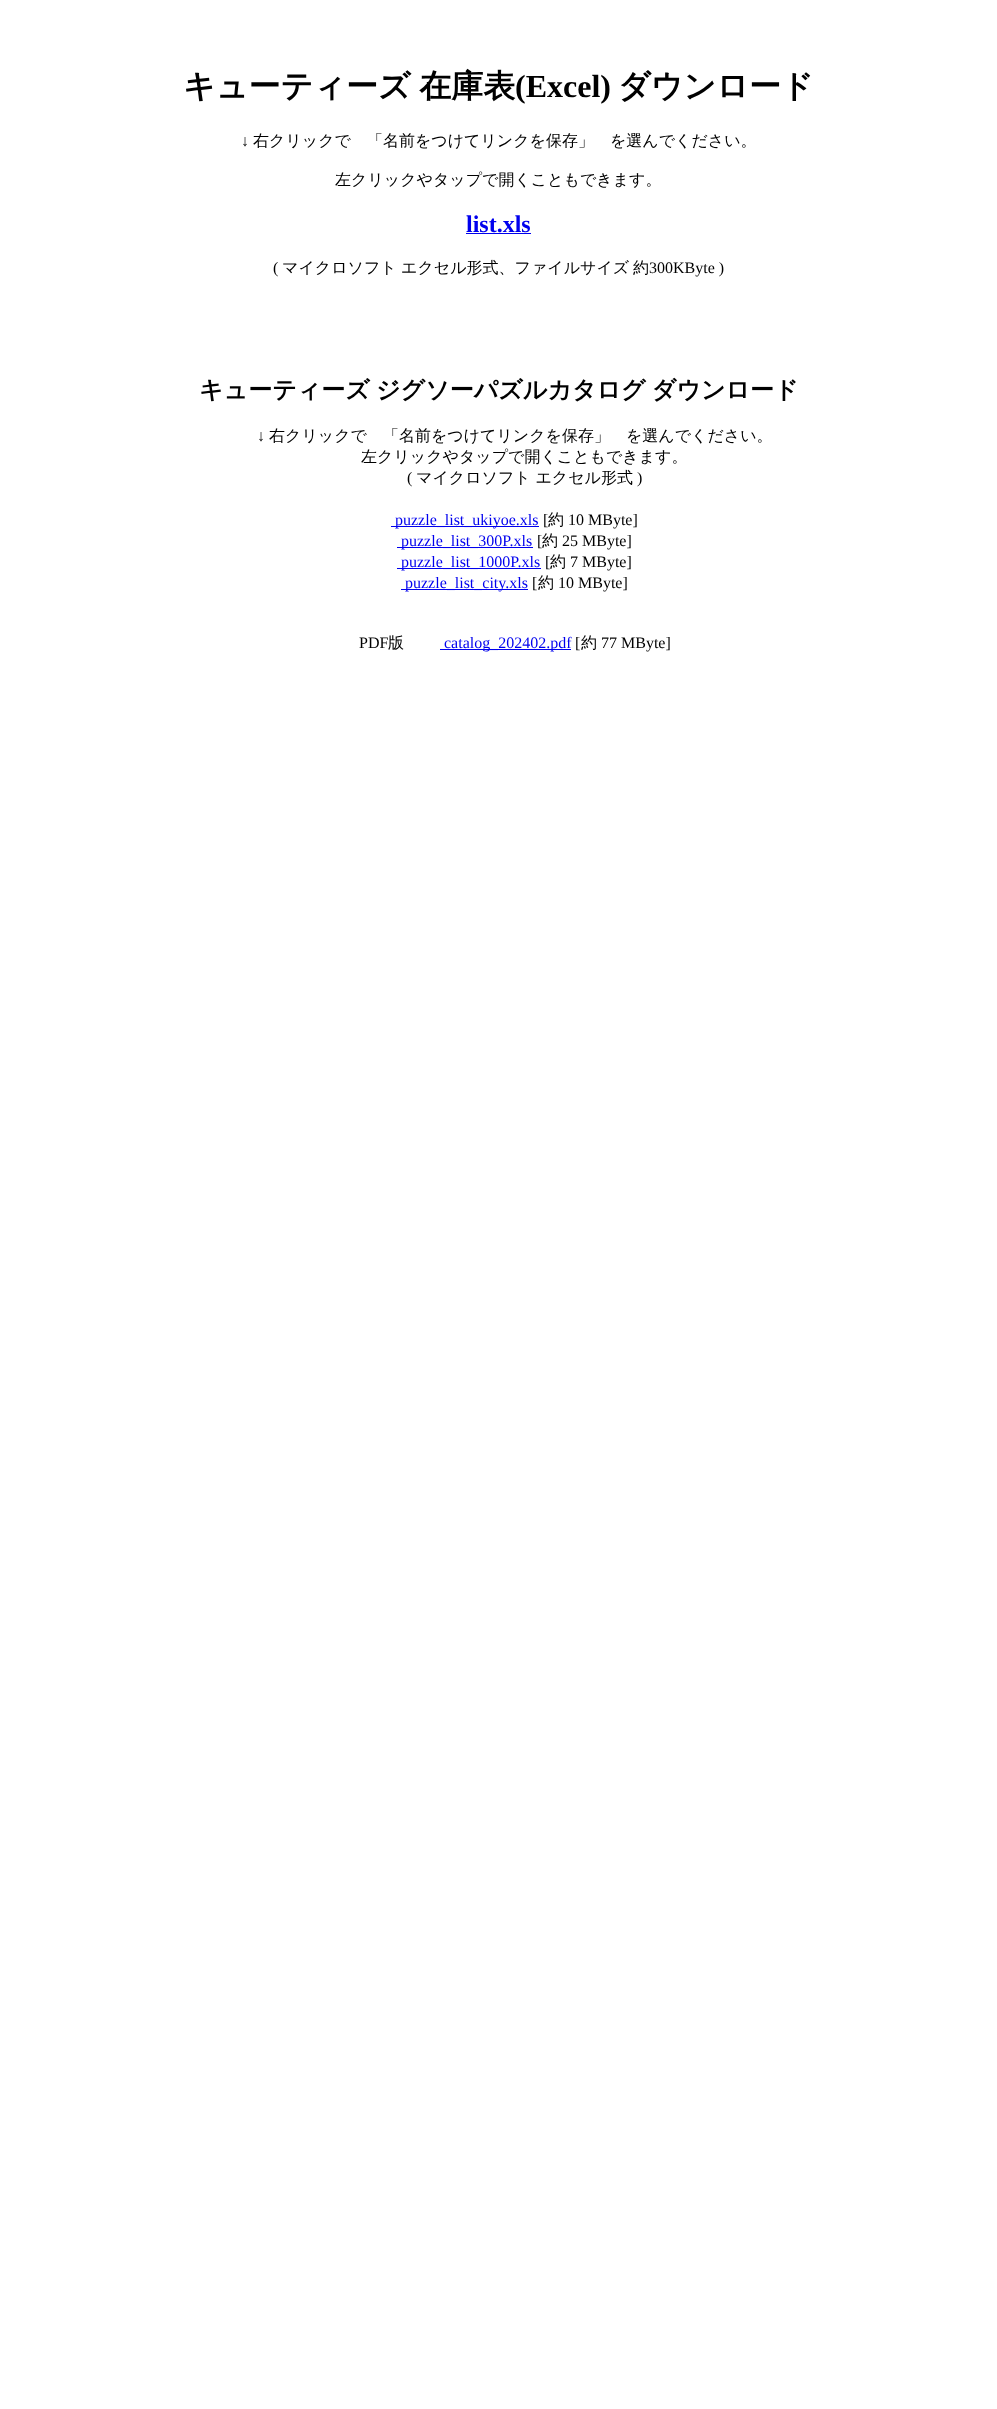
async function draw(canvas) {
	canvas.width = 997;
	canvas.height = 2409;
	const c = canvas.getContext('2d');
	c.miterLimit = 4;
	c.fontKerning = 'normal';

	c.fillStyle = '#fff';
	c.fillRect(0, 0, 997, 2409);
	c.wordSpacing = '-1px';
	c.font = 'bold 32px WenQuanYi Zen Hei';
	c.fillStyle = '#000';
	c.fillText('キューティーズ 在庫表', 183, 97);
	c.wordSpacing = '0px';
	c.font = 'bold 32px Liberation Serif';
	c.fillText('(Excel)', 515, 97);
	c.font = 'bold 32px WenQuanYi Zen Hei';
	c.fillText('ダウンロード', 618, 97);
	c.font = '16px Liberation Serif';
	c.fillText('↓', 241, 146);
	c.font = '500 16px WenQuanYi Zen Hei';
	c.fillText('右クリックで　「名前をつけてリンクを保存」　を選んでください。', 253, 146);
	c.fillText('左クリックやタップで開くこともできます。', 335, 185);
	c.font = 'bold 24px Liberation Serif';
	c.fillStyle = '#00e';
	c.fillText('list.xls', 466, 232);
	c.fillRect(466, 233, 65, 1);
	c.font = '16px Liberation Serif';
	c.fillStyle = '#000';
	c.fillText('(', 273, 273);
	c.font = '500 16px WenQuanYi Zen Hei';
	for (const [text, x, y] of [
		['マイクロソフト', 282, 273],
		['エクセル形式、ファイルサイズ', 401, 273],
		['約', 633, 273],
	]) {
		c.fillText(text, x, y);
	}
	c.font = '16px Liberation Serif';
	c.fillText('300KByte )', 649, 273);
	c.wordSpacing = '-1px';
	c.font = 'bold 24px WenQuanYi Zen Hei';
	c.fillText('キューティーズ ジグソーパズルカタログ ダウンロード', 199, 398);
	c.wordSpacing = '0px';
	c.font = '16px Liberation Serif';
	c.fillText('↓', 257, 441);
	c.font = '500 16px WenQuanYi Zen Hei';
	c.fillText('右クリックで　「名前をつけてリンクを保存」　を選んでください。', 269, 441);
	c.fillText('左クリックやタップで開くこともできます。', 361, 462);
	c.font = '16px Liberation Serif';
	c.fillText('(', 407, 483);
	c.font = '500 16px WenQuanYi Zen Hei';
	c.fillText('マイクロソフト エクセル形式', 416, 483);
	c.font = '16px Liberation Serif';
	c.fillText(')', 637, 483);
	c.fillStyle = '#00e';
	c.fillRect(391, 526, 148, 1);
	c.fillText('puzzle_list_ukiyoe.xls', 395, 525);
	c.fillStyle = '#000';
	c.fillText('[', 543, 525);
	c.font = '500 16px WenQuanYi Zen Hei';
	c.fillText('約', 548, 525);
	c.font = '16px Liberation Serif';
	c.fillText('10 MByte]', 568, 525);
	c.fillStyle = '#00e';
	c.fillRect(397, 547, 136, 1);
	c.fillText('puzzle_list_300P.xls', 401, 546);
	c.fillStyle = '#000';
	c.fillText('[', 537, 546);
	c.font = '500 16px WenQuanYi Zen Hei';
	c.fillText('約', 542, 546);
	c.font = '16px Liberation Serif';
	c.fillText('25 MByte]', 562, 546);
	c.fillStyle = '#00e';
	c.fillRect(397, 568, 144, 1);
	c.fillText('puzzle_list_1000P.xls', 401, 567);
	c.fillStyle = '#000';
	c.fillText('[', 545, 567);
	c.font = '500 16px WenQuanYi Zen Hei';
	c.fillText('約', 550, 567);
	c.font = '16px Liberation Serif';
	c.fillText('7 MByte]', 570, 567);
	c.fillStyle = '#00e';
	c.fillRect(401, 589, 127, 1);
	c.fillText('puzzle_list_city.xls', 405, 588);
	c.fillStyle = '#000';
	c.fillText('[', 532, 588);
	c.font = '500 16px WenQuanYi Zen Hei';
	c.fillText('約', 538, 588);
	c.font = '16px Liberation Serif';
	c.fillText('10 MByte]', 558, 588);
	c.fillText('PDF', 359, 648);
	c.font = '500 16px WenQuanYi Zen Hei';
	c.fillText('版', 388, 648);
	c.fillStyle = '#00e';
	c.fillRect(440, 649, 131, 1);
	c.font = '16px Liberation Serif';
	c.fillText('catalog_202402.pdf', 444, 648);
	c.fillStyle = '#000';
	c.fillText('[', 575, 648);
	c.font = '500 16px WenQuanYi Zen Hei';
	c.fillText('約', 581, 648);
	c.font = '16px Liberation Serif';
	c.fillText('77 MByte]', 601, 648);
}

draw(document.querySelector('canvas'));
